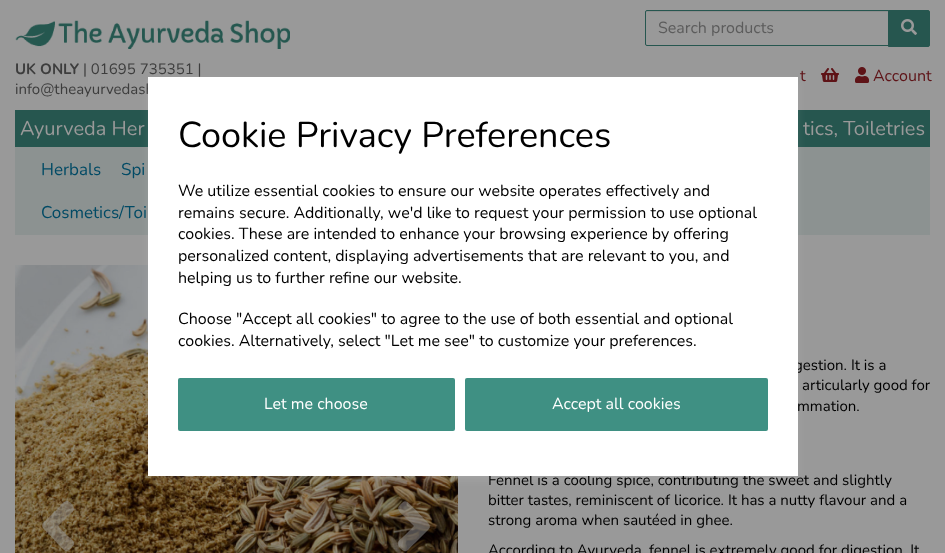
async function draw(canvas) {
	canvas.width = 945;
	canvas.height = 553;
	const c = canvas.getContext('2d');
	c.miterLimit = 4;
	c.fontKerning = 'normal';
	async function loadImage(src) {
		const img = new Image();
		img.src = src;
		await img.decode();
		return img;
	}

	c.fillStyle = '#999';
	c.fillRect(0, 0, 945, 553);
	c.drawImage(await loadImage('img1.png'), 15, 20, 275, 29);
	c.font = 'bold 15px Nunito';
	c.fillStyle = '#3d3d3d';
	c.fillText('UK ONLY', 15, 74);
	c.font = '15px Nunito';
	c.fillText('| 01695 735351 |', 83, 74);
	c.fillText('info@theayurvedash', 15, 94);
	c.fillStyle = '#8e8e8e';
	c.beginPath();
	c.moveTo(647, 12);
	c.lineTo(888, 12);
	c.lineTo(888, 11);
	c.lineTo(647, 11);
	c.bezierCurveTo(646, 11, 646, 12, 646, 13);
	c.bezierCurveTo(646, 12, 646, 12, 647, 12);
	c.closePath();
	c.fill();
	c.beginPath();
	c.roundRect(645.5, 10.5, 243, 35, [1.5, 0, 0, 1.5]);
	c.strokeStyle = '#26564f';
	c.stroke();
	c.font = '16px Nunito';
	c.fillStyle = '#5c5c5c';
	c.fillText('Search products', 658, 33);
	c.fillStyle = '#26564f';
	c.beginPath();
	c.roundRect(888.5, 10.5, 41, 36, [0, 1.5, 1.5, 0]);
	c.fill();
	c.stroke();
	c.drawImage(await loadImage('img2.png'), 901, 19, 16, 16);
	c.fillStyle = '#5e1317';
	c.fillText('t', 800, 81);
	c.drawImage(await loadImage('img3.png'), 821, 68, 18, 14);
	c.drawImage(await loadImage('img4.png'), 855, 67, 14, 16);
	c.fillText('Account', 873, 81);
	c.fillStyle = '#26564f';
	c.fillRect(15, 110, 915, 37);
	c.font = '20px Nunito';
	c.fillStyle = '#999';
	c.fillText('Ayurveda Her', 20, 135);
	c.fillText('tics, Toiletries', 803, 135);
	c.fillStyle = '#8c9291';
	c.fillRect(15, 147, 915, 88);
	c.font = '17px Nunito';
	c.fillStyle = '#014a65';
	for (const [text, x, y] of [
		['Herbals', 41, 175],
		['Spi', 121, 175],
		['Cosmetics/Toi', 41, 218],
	]) {
		c.fillText(text, x, y);
	}
	c.drawImage(await loadImage('img5.png'), 15, 265, 443, 288);
	c.fillStyle = '#ffffff1a';
	c.filter = 'blur(4px)';
	c.beginPath();
	c.rect(148, 81, 650, 399);
	c.fill();
	c.filter = 'none';
	c.font = '15px Nunito';
	c.fillStyle = '#000';
	c.fillText('gestion. It is a', 794, 370);
	c.fillText('Fennel is a cooling spice, contributing the sweet and slightly', 488, 485);
	c.fillStyle = '#fff';
	c.fillRect(148, 77, 650, 399);
	c.font = '36px Nunito';
	c.fillStyle = '#000';
	c.fillText('Cookie Privacy Preferences', 178, 147);
	c.font = '16px Nunito';
	for (const [text, x, y] of [
		['We utilize essential cookies to ensure our website operates effectively and', 178, 196],
		['remains secure. Additionally, we\'d like to request your permission to use optional', 178, 218],
		['cookies. These are intended to enhance your browsing experience by offering', 178, 239],
		['personalized content, displaying advertisements that are relevant to you, and', 178, 261],
		['helping us to further refine our website.', 178, 283],
		['Choose "Accept all cookies" to agree to the use of both essential and optional', 178, 324],
		['cookies. Alternatively, select "Let me see" to customize your preferences.', 178, 346],
	]) {
		c.fillText(text, x, y);
	}
	c.fillStyle = '#3f9083';
	c.beginPath();
	c.roundRect(178, 378, 277, 53, 2);
	c.fill();
	c.fillStyle = '#fff';
	c.fillText('Let me choose', 264, 409);
	c.fillStyle = '#3f9083';
	c.beginPath();
	c.roundRect(465, 378, 303, 53, 2);
	c.fill();
	c.fillStyle = '#fff';
	c.fillText('Accept all cookies', 552, 409);
	c.fillStyle = '#99999980';
	c.beginPath();
	c.moveTo(43, 523);
	c.lineTo(57, 509);
	c.bezierCurveTo(64, 503, 65, 497, 72, 504);
	c.bezierCurveTo(77, 510, 72, 512, 68, 516);
	c.lineTo(58, 526);
	c.lineTo(68, 536);
	c.bezierCurveTo(70, 538, 77, 542, 73, 546);
	c.bezierCurveTo(66, 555, 65, 551, 57, 543);
	c.lineTo(47, 532);
	c.bezierCurveTo(45, 530, 40, 527, 43, 523);
	c.closePath();
	c.fill();
	c.beginPath();
	c.moveTo(429, 529);
	c.lineTo(415, 543);
	c.bezierCurveTo(408, 549, 407, 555, 400, 548);
	c.bezierCurveTo(395, 542, 400, 540, 404, 536);
	c.lineTo(414, 526);
	c.lineTo(404, 516);
	c.bezierCurveTo(402, 514, 396, 510, 399, 506);
	c.bezierCurveTo(406, 497, 407, 502, 415, 509);
	c.lineTo(425, 520);
	c.bezierCurveTo(427, 522, 432, 525, 429, 529);
	c.closePath();
	c.fill();
	c.font = '15px Nunito';
	c.fillStyle = '#000';
	for (const [text, x, y] of [
		['articularly good for', 802, 390],
		['mmation.', 797, 411],
		['bitter tastes, reminiscent of licorice. It has a nutty flavour and a', 488, 505],
		['strong aroma when sautéed in ghee.', 488, 525],
		['According to Ayurveda, fennel is extremely good for digestion. It', 488, 555],
	]) {
		c.fillText(text, x, y);
	}
}

draw(document.querySelector('canvas'));
